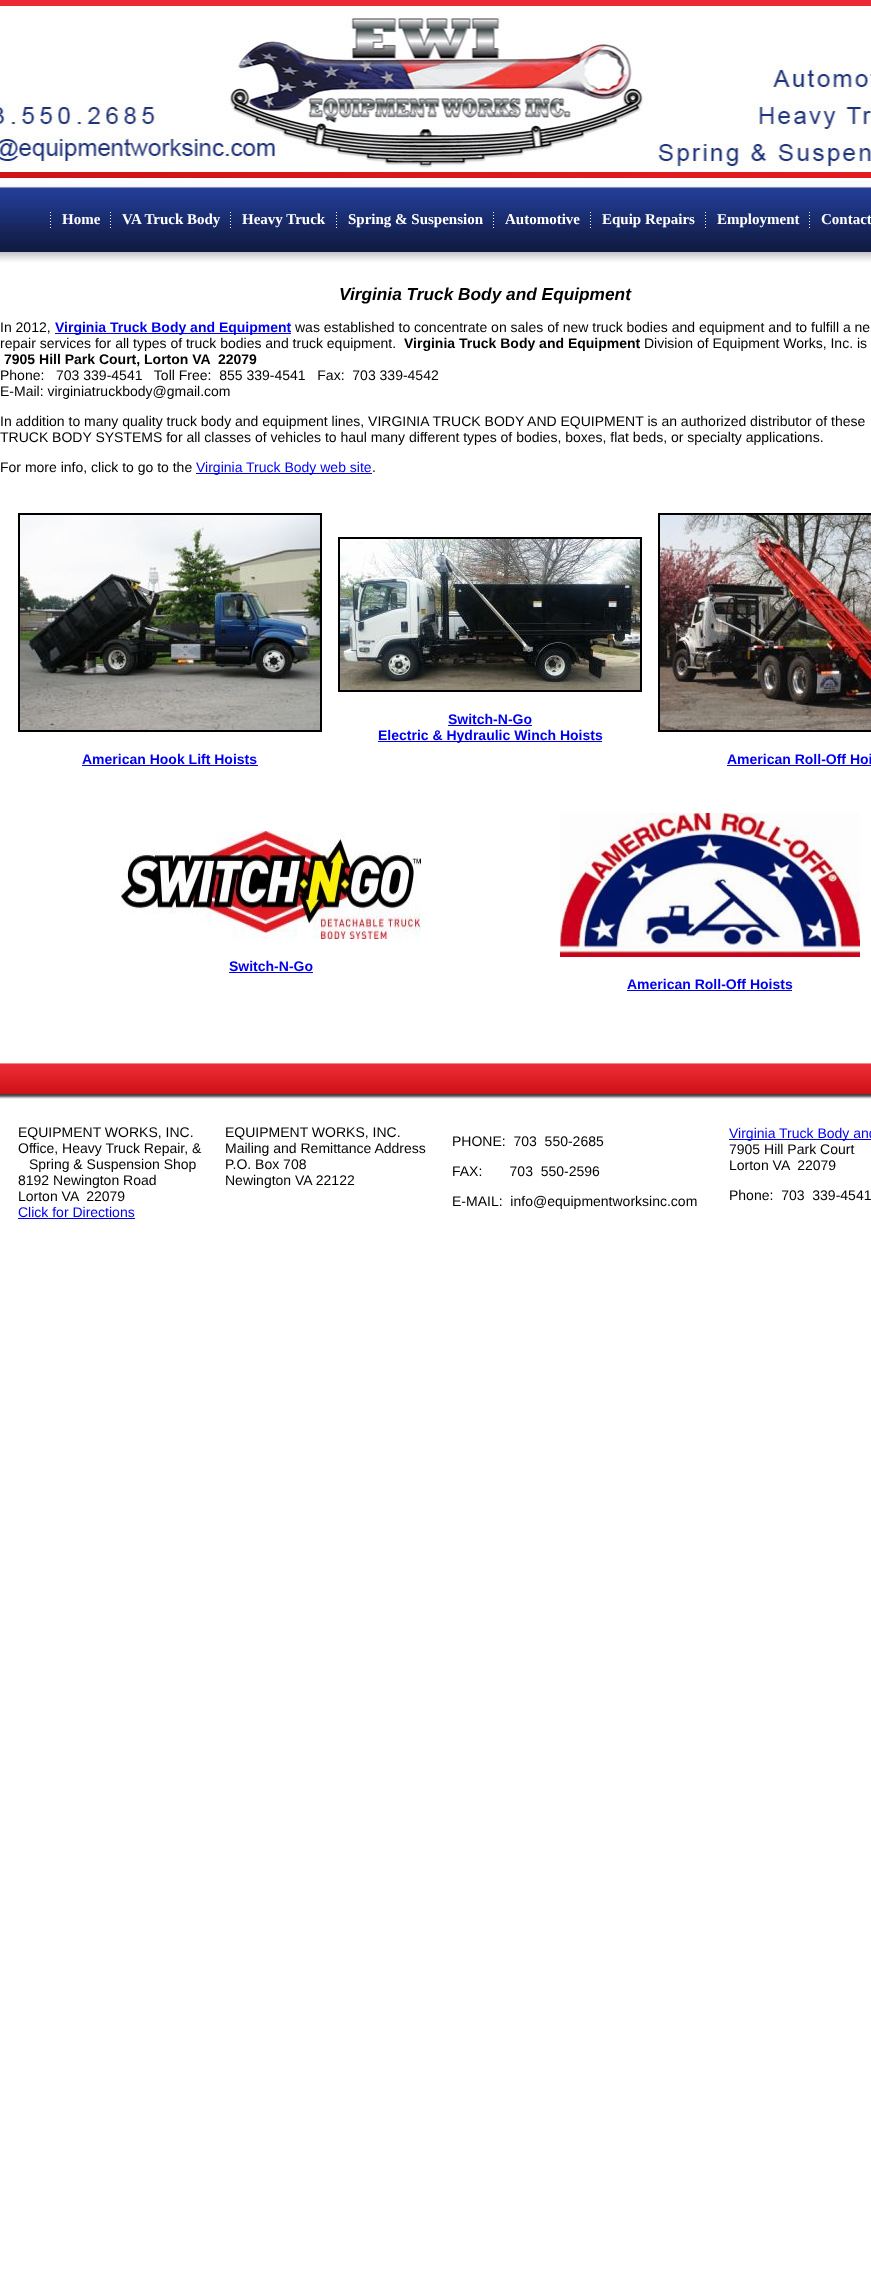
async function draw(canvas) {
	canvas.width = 871;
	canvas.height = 2287;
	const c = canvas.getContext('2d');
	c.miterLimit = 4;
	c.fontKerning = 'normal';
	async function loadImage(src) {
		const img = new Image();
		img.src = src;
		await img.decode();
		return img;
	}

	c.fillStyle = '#fff';
	c.fillRect(0, 0, 871, 2287);
	c.drawImage(await loadImage('img1.png'), 0, 0, 871, 262);
	c.drawImage(await loadImage('img2.png'), 50, 212, 1, 16);
	c.font = 'bold 15px Liberation Serif';
	c.fillText('Home', 62, 224);
	c.drawImage(await loadImage('img2.png'), 110, 212, 1, 16);
	c.fillText('VA Truck Body', 122, 224);
	c.drawImage(await loadImage('img2.png'), 230, 212, 1, 16);
	c.fillText('Heavy Truck', 242, 224);
	c.drawImage(await loadImage('img2.png'), 336, 212, 1, 16);
	c.fillText('Spring & Suspension', 348, 224);
	c.drawImage(await loadImage('img2.png'), 493, 212, 1, 16);
	c.fillText('Automotive', 505, 224);
	c.drawImage(await loadImage('img2.png'), 590, 212, 1, 16);
	c.fillText('Equip Repairs', 602, 224);
	c.drawImage(await loadImage('img2.png'), 705, 212, 1, 16);
	c.fillText('Employment', 717, 224);
	c.drawImage(await loadImage('img2.png'), 809, 212, 1, 16);
	c.fillText('Contact', 821, 224);
	c.font = 'italic bold 17.3px Liberation Sans';
	c.fillStyle = '#000';
	c.fillText('Virginia Truck Body and Equipment', 339, 300);
	c.font = '14px Liberation Sans';
	c.fillText('In 2012,', 0, 332);
	c.fillStyle = '#00e';
	c.fillRect(55, 333, 236, 1);
	c.font = 'bold 14px Liberation Sans';
	c.fillText('Virginia Truck Body and Equipment', 55, 332);
	c.font = '14px Liberation Sans';
	c.fillStyle = '#000';
	c.fillText('was established to concentrate on sales of new truck bodies and equipment and to fulfill a ne', 295, 332);
	c.fillText('repair services for all types of truck bodies and truck equipment.', 0, 348);
	c.font = 'bold 14px Liberation Sans';
	c.fillText('Virginia Truck Body and Equipment', 404, 348);
	c.font = '14px Liberation Sans';
	c.fillText('Division of Equipment Works, Inc. is', 644, 348);
	c.font = 'bold 14px Liberation Sans';
	c.fillText('7905 Hill Park Court, Lorton VA  22079', 4, 364);
	c.font = '14px Liberation Sans';
	for (const [text, x, y] of [
		['Phone:   703 339-4541   Toll Free:  855 339-4541   Fax:  703 339-4542', 0, 380],
		['E-Mail: virginiatruckbody@gmail.com', 0, 396],
		['In addition to many quality truck body and equipment lines, VIRGINIA TRUCK BODY AND EQUIPMENT is an authorized distributor of these', 0, 426],
		['TRUCK BODY SYSTEMS for all classes of vehicles to haul many different types of bodies, boxes, flat beds, or specialty applications.', 0, 442],
		['For more info, click to go to the', 0, 472],
	]) {
		c.fillText(text, x, y);
	}
	c.fillStyle = '#00e';
	c.fillRect(196, 473, 176, 1);
	c.fillText('Virginia Truck Body web site', 196, 472);
	c.fillStyle = '#000';
	c.fillText('.', 372, 472);
	c.strokeStyle = '#000';
	c.lineWidth = 2;
	c.strokeRect(339, 538, 302, 153);
	c.drawImage(await loadImage('img3.png'), 340, 539, 300, 151);
	c.font = 'bold 14px Liberation Sans';
	c.fillStyle = '#00e';
	c.fillText('Switch-N-Go', 448, 724);
	c.fillRect(448, 725, 84, 1);
	c.fillRect(378, 741, 224, 1);
	c.fillText('Electric & Hydraulic Winch Hoists', 378, 740);
	c.strokeRect(19, 514, 302, 217);
	c.drawImage(await loadImage('img4.png'), 20, 515, 300, 215);
	c.fillText('American Hook Lift Hoists', 82, 764);
	c.fillRect(82, 765, 176, 1);
	c.strokeRect(659, 514, 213, 217);
	c.drawImage(await loadImage('img5.png'), 660, 515, 211, 215);
	c.fillText('American Roll-Off Hoi', 727, 764);
	c.fillRect(727, 765, 144, 1);
	c.drawImage(await loadImage('img6.png'), 121, 831, 300, 108);
	c.fillText('Switch-N-Go', 229, 971);
	c.fillRect(229, 972, 84, 1);
	c.drawImage(await loadImage('img7.png'), 560, 813, 300, 144);
	c.fillText('American Roll-Off Hoists', 627, 989);
	c.fillRect(627, 990, 165, 1);
	c.drawImage(await loadImage('img8.png'), 0, 1063, 871, 36);
	c.font = '14px Liberation Sans';
	c.fillStyle = '#000';
	for (const [text, x, y] of [
		['EQUIPMENT WORKS, INC.', 18, 1137],
		['Office, Heavy Truck Repair, &', 18, 1153],
		['Spring & Suspension Shop', 29, 1169],
		['8192 Newington Road', 18, 1185],
		['Lorton VA  22079', 18, 1201],
	]) {
		c.fillText(text, x, y);
	}
	c.fillStyle = '#00e';
	c.fillText('Click for Directions', 18, 1217);
	c.fillRect(18, 1218, 117, 1);
	c.fillStyle = '#000';
	for (const [text, x, y] of [
		['EQUIPMENT WORKS, INC.', 225, 1137],
		['Mailing and Remittance Address', 225, 1153],
		['P.O. Box 708', 225, 1169],
		['Newington VA 22122', 225, 1185],
		['PHONE:  703  550-2685', 452, 1146],
		['FAX:       703  550-2596', 452, 1176],
		['E-MAIL:  info@equipmentworksinc.com', 452, 1206],
	]) {
		c.fillText(text, x, y);
	}
	c.fillStyle = '#00e';
	c.fillRect(729, 1139, 142, 1);
	c.fillText('Virginia Truck Body and', 729, 1138);
	c.fillStyle = '#000';
	for (const [text, x, y] of [
		['7905 Hill Park Court', 729, 1154],
		['Lorton VA  22079', 729, 1170],
		['Phone:  703  339-4541', 729, 1200],
	]) {
		c.fillText(text, x, y);
	}
}

draw(document.querySelector('canvas'));
